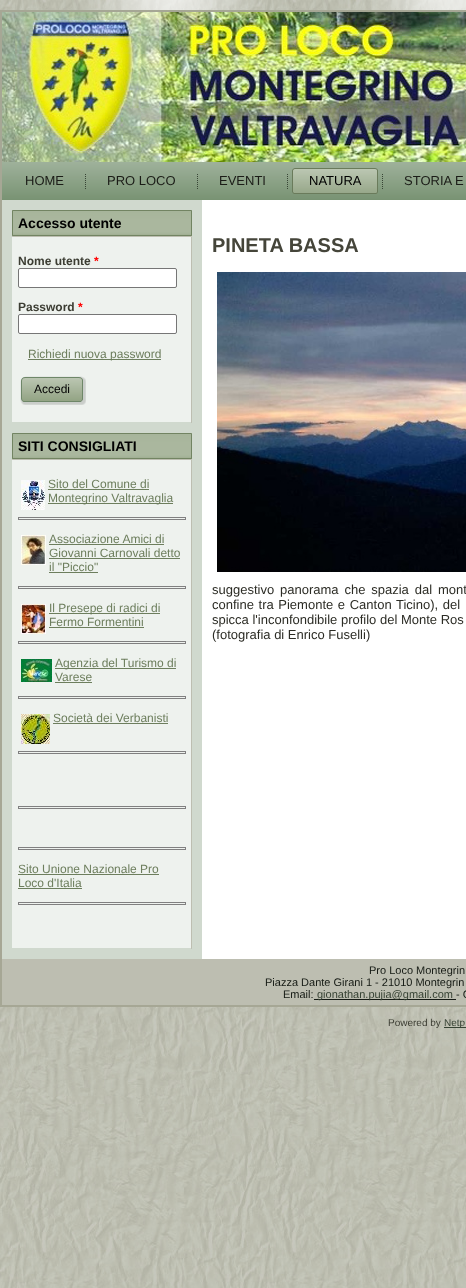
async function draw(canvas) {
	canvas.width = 466;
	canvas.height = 1288;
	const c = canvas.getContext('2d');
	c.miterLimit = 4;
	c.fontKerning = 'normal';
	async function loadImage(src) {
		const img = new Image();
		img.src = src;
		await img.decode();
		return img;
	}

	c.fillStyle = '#fff';
	c.fillRect(0, 0, 466, 1288);
	c.drawImage(await loadImage('img1.png'), 0, 0, 466, 1288);
	c.drawImage(await loadImage('img2.png'), 77, 0, 389, 10);
	c.drawImage(await loadImage('img3.png'), 0, 10, 466, 997);
	c.drawImage(await loadImage('img5.png'), 0, 13, 466, 991);
	c.drawImage(await loadImage('img4.png'), 2, 12, 464, 150);
	c.drawImage(await loadImage('img6.png'), 2, 162, 464, 38);
	c.font = '13px Liberation Sans';
	c.fillStyle = '#1b1c17';
	c.fillText('HOME', 25, 185);
	c.drawImage(await loadImage('img7.png'), 85, 174, 1, 15);
	c.fillText('PRO LOCO', 107, 185);
	c.drawImage(await loadImage('img7.png'), 197, 174, 1, 15);
	c.fillText('EVENTI', 219, 185);
	c.drawImage(await loadImage('img7.png'), 287, 174, 1, 15);
	c.drawImage(await loadImage('img8.png'), 292, 168, 83, 26);
	c.drawImage(await loadImage('img9.png'), 375, 168, 3, 26);
	c.fillStyle = '#000';
	c.fillText('NATURA', 309, 185);
	c.drawImage(await loadImage('img7.png'), 382, 174, 1, 15);
	c.fillStyle = '#1b1c17';
	c.fillText('STORIA E', 404, 185);
	c.fillStyle = '#d0d9ce';
	c.fillRect(2, 200, 200, 759);
	c.drawImage(await loadImage('img10.png'), 12, 210, 179, 26);
	c.drawImage(await loadImage('img11.png'), 191, 210, 1, 26);
	c.font = 'bold 14px Liberation Sans';
	c.fillStyle = '#000';
	c.fillText('Accesso utente', 18, 228);
	c.drawImage(await loadImage('img12.png'), 12, 236, 179, 1);
	c.fillStyle = '#bdbeb1';
	c.fillRect(191, 237, 1, 185);
	c.drawImage(await loadImage('img13.png'), 191, 236, 1, 187);
	c.fillStyle = '#eef2ee';
	c.fillRect(12, 237, 179, 185);
	c.font = 'bold 12px Liberation Sans';
	c.fillStyle = '#3c3d33';
	c.fillText('Nome utente', 18, 265);
	c.fillStyle = '#f00';
	c.fillText('*', 94, 265);
	c.fillStyle = '#fff';
	c.beginPath();
	c.roundRect(18.5, 268.5, 158, 19, 1.5);
	c.fill();
	c.strokeStyle = '#767676';
	c.stroke();
	c.fillStyle = '#3c3d33';
	c.fillText('Password', 18, 311);
	c.fillStyle = '#f00';
	c.fillText('*', 78, 311);
	c.fillStyle = '#fff';
	c.beginPath();
	c.roundRect(18.5, 314.5, 158, 19, 1.5);
	c.fill();
	c.stroke();
	c.fillStyle = '#6d7e5d';
	c.fillRect(28, 359, 133, 1);
	c.font = '12px Liberation Sans';
	c.fillText('Richiedi nuova password', 28, 358);
	c.drawImage(await loadImage('img14.png'), 20, 376, 56, 29);
	c.drawImage(await loadImage('img15.png'), 76, 376, 10, 29);
	c.fillStyle = '#000';
	c.fillText('Accedi', 34, 393);
	c.drawImage(await loadImage('img10.png'), 12, 433, 179, 26);
	c.drawImage(await loadImage('img11.png'), 191, 433, 1, 26);
	c.font = 'bold 14px Liberation Sans';
	c.fillText('SITI CONSIGLIATI', 18, 451);
	c.drawImage(await loadImage('img12.png'), 12, 459, 179, 1);
	c.fillStyle = '#bdbeb1';
	c.fillRect(191, 460, 1, 488);
	c.drawImage(await loadImage('img16.png'), 191, 459, 1, 490);
	c.fillStyle = '#eef2ee';
	c.fillRect(12, 460, 179, 488);
	c.drawImage(await loadImage('img17.png'), 21, 480, 24, 30);
	c.font = '12px Liberation Sans';
	c.fillStyle = '#6d7e5d';
	c.fillText('Sito del Comune di', 48, 488);
	c.fillRect(48, 489, 101, 1);
	c.fillRect(48, 503, 125, 1);
	c.fillText('Montegrino Valtravaglia', 48, 502);
	c.strokeStyle = '#808080';
	c.strokeRect(18.5, 517.5, 167, 2);
	c.drawImage(await loadImage('img18.png'), 21, 535, 25, 30);
	c.fillText('Associazione Amici di', 49, 543);
	c.fillRect(49, 544, 115, 1);
	c.fillText('Giovanni Carnovali detto', 49, 557);
	c.fillRect(49, 558, 131, 1);
	c.fillText('il "Piccio"', 49, 571);
	c.fillRect(49, 572, 49, 1);
	c.strokeRect(18.5, 586.5, 167, 2);
	c.drawImage(await loadImage('img19.png'), 21, 604, 25, 30);
	c.fillRect(49, 613, 111, 1);
	c.fillText('Il Presepe di radici di', 49, 612);
	c.fillText('Fermo Formentini', 49, 626);
	c.fillRect(49, 627, 95, 1);
	c.strokeRect(18.5, 641.5, 167, 2);
	c.drawImage(await loadImage('img20.png'), 21, 659, 31, 23);
	c.fillRect(55, 668, 121, 1);
	c.fillText('Agenzia del Turismo di', 55, 667);
	c.fillText('Varese', 55, 681);
	c.fillRect(55, 682, 37, 1);
	c.strokeRect(18.5, 696.5, 167, 2);
	c.drawImage(await loadImage('img21.png'), 21, 714, 29, 30);
	c.fillText('Società dei Verbanisti', 53, 722);
	c.fillRect(53, 723, 115, 1);
	c.strokeRect(18.5, 751.5, 167, 2);
	c.strokeRect(18.5, 806.5, 167, 2);
	c.strokeRect(18.5, 847.5, 167, 2);
	c.fillText('Sito Unione Nazionale Pro', 18, 873);
	c.fillRect(18, 874, 141, 1);
	c.fillText('Loco d\'Italia', 18, 887);
	c.fillRect(18, 888, 64, 1);
	c.strokeRect(18.5, 902.5, 167, 2);
	c.font = 'bold 20px Liberation Sans';
	c.fillStyle = '#45453a';
	c.fillText('PINETA BASSA', 212, 252);
	c.drawImage(await loadImage('img22.png'), 217, 272, 249, 300);
	c.wordSpacing = '2.25px';
	c.font = '13px Liberation Sans';
	c.fillStyle = '#2c2c25';
	c.fillText('suggestivo panorama che spazia dal mont', 212, 594);
	c.wordSpacing = '1px';
	c.fillText('confine tra Piemonte e Canton Ticino), del', 212, 609);
	c.wordSpacing = '0px';
	c.fillText('spicca l\'inconfondibile profilo del Monte Ros', 212, 624);
	c.fillText('(fotografia di Enrico Fuselli)', 212, 639);
	c.fillStyle = '#bdbeb1';
	c.fillRect(2, 959, 464, 46);
	c.font = '11px Liberation Sans';
	c.fillStyle = '#151a14';
	for (const [text, x, y] of [
		['Pro Loco Montegrin', 369, 974],
		['Piazza Dante Girani 1 - 21010 Montegrin', 265, 986],
		['Email:', 283, 998],
	]) {
		c.fillText(text, x, y);
	}
	c.fillRect(314, 999, 142, 1);
	c.fillStyle = '#364233';
	c.fillText('gionathan.pujia@gmail.com', 317, 998);
	c.fillStyle = '#151a14';
	c.fillText('- C', 456, 998);
	c.font = '10px Liberation Sans';
	c.fillStyle = '#3c3d33';
	c.fillText('Powered by', 388, 1026);
	c.fillStyle = '#364233';
	c.fillRect(444, 1027, 22, 1);
	c.fillText('Netp', 444, 1026);
}

draw(document.querySelector('canvas'));
